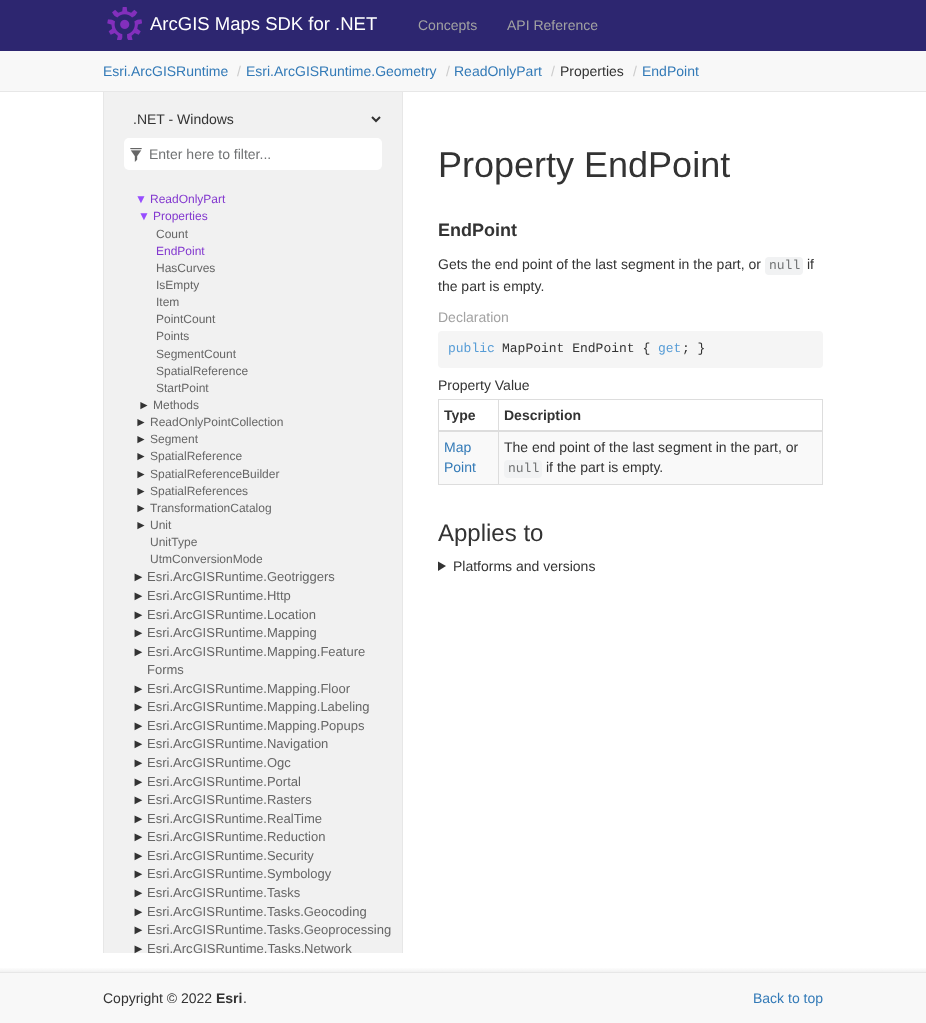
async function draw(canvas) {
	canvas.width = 926;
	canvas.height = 1023;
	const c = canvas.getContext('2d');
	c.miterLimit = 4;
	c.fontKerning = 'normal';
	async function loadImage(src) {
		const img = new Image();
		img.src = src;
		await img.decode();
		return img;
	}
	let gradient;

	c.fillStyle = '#fff';
	c.fillRect(0, 0, 926, 1023);
	c.fillStyle = '#2d2670';
	c.fillRect(0, 0, 926, 51);
	c.drawImage(await loadImage('img1.png'), 107, 7, 35, 33);
	c.font = '18.5px Liberation Sans';
	c.fillStyle = '#fff';
	c.fillText('ArcGIS Maps SDK for .NET', 150, 30);
	c.font = '14px Liberation Sans';
	c.fillStyle = '#a2a2a2';
	c.fillText('Concepts', 418, 30);
	c.fillText('API Reference', 507, 30);
	for (const [x, y, w, h, color] of [
		[402, 90, 1, 863, '#e7e7e7'],
		[103, 90, 1, 863, '#e7e7e7'],
		[0, 51, 926, 40, '#f8f8f8'],
		[0, 91, 926, 1, '#e7e7e7'],
	]) {
		c.fillStyle = color;
		c.fillRect(x, y, w, h);
	}
	c.fillStyle = '#337ab7';
	c.fillText('Esri.ArcGISRuntime', 103, 76);
	c.fillStyle = '#ccc';
	c.fillText('/', 237, 76);
	c.fillStyle = '#337ab7';
	c.fillText('Esri.ArcGISRuntime.Geometry', 246, 76);
	c.fillStyle = '#ccc';
	c.fillText('/', 446, 76);
	c.fillStyle = '#337ab7';
	c.fillText('ReadOnlyPart', 454, 76);
	c.fillStyle = '#ccc';
	c.fillText('/', 551, 76);
	c.fillStyle = '#333';
	c.fillText('Properties', 560, 76);
	c.fillStyle = '#ccc';
	c.fillText('/', 633, 76);
	c.fillStyle = '#337ab7';
	c.fillText('EndPoint', 642, 76);
	c.fillStyle = '#f1f1f1';
	c.fillRect(104, 92, 298, 861);
	c.beginPath();
	c.moveTo(372, 117);
	c.lineTo(376, 121);
	c.lineTo(380, 117);
	c.strokeStyle = '#333';
	c.lineWidth = 2;
	c.stroke();
	c.fillStyle = '#333';
	c.fillText('.NET - Windows', 133, 124);
	c.fillStyle = '#fff';
	c.beginPath();
	c.roundRect(124, 138, 258, 32, 5);
	c.fill();
	c.drawImage(await loadImage('img2.png'), 130, 148, 12, 14);
	c.fillStyle = '#717374';
	c.fillText('Enter here to filter...', 149, 159);
	c.font = '12px Liberation Sans';
	c.fillStyle = '#974dff';
	c.fillText('▼', 135, 203);
	c.fillStyle = '#8338cf';
	c.fillText('ReadOnlyPart', 150, 203);
	c.fillStyle = '#974dff';
	c.fillText('▼', 138, 220);
	c.fillStyle = '#8338cf';
	c.fillText('Properties', 153, 220);
	c.fillStyle = '#666';
	c.fillText('Count', 156, 238);
	c.fillStyle = '#8338cf';
	c.fillText('EndPoint', 156, 255);
	c.fillStyle = '#666';
	for (const [text, x, y] of [
		['HasCurves', 156, 272],
		['IsEmpty', 156, 289],
		['Item', 156, 306],
		['PointCount', 156, 323],
		['Points', 156, 340],
		['SegmentCount', 156, 358],
		['SpatialReference', 156, 375],
		['StartPoint', 156, 392],
	]) {
		c.fillText(text, x, y);
	}
	c.fillStyle = '#333';
	c.fillText('►', 138, 409);
	c.fillStyle = '#666';
	c.fillText('Methods', 153, 409);
	c.fillStyle = '#333';
	c.fillText('►', 135, 426);
	c.fillStyle = '#666';
	c.fillText('ReadOnlyPointCollection', 150, 426);
	c.fillStyle = '#333';
	c.fillText('►', 135, 443);
	c.fillStyle = '#666';
	c.fillText('Segment', 150, 443);
	c.fillStyle = '#333';
	c.fillText('►', 135, 460);
	c.fillStyle = '#666';
	c.fillText('SpatialReference', 150, 460);
	c.fillStyle = '#333';
	c.fillText('►', 135, 478);
	c.fillStyle = '#666';
	c.fillText('SpatialReferenceBuilder', 150, 478);
	c.fillStyle = '#333';
	c.fillText('►', 135, 495);
	c.fillStyle = '#666';
	c.fillText('SpatialReferences', 150, 495);
	c.fillStyle = '#333';
	c.fillText('►', 135, 512);
	c.fillStyle = '#666';
	c.fillText('TransformationCatalog', 150, 512);
	c.fillStyle = '#333';
	c.fillText('►', 135, 529);
	c.fillStyle = '#666';
	for (const [text, x, y] of [
		['Unit', 150, 529],
		['UnitType', 150, 546],
		['UtmConversionMode', 150, 563],
	]) {
		c.fillText(text, x, y);
	}
	c.font = '13px Liberation Sans';
	c.fillStyle = '#333';
	c.fillText('►', 132, 581);
	c.fillStyle = '#666';
	c.fillText('Esri.ArcGISRuntime.Geotriggers', 147, 581);
	c.fillStyle = '#333';
	c.fillText('►', 132, 600);
	c.fillStyle = '#666';
	c.fillText('Esri.ArcGISRuntime.Http', 147, 600);
	c.fillStyle = '#333';
	c.fillText('►', 132, 619);
	c.fillStyle = '#666';
	c.fillText('Esri.ArcGISRuntime.Location', 147, 619);
	c.fillStyle = '#333';
	c.fillText('►', 132, 637);
	c.fillStyle = '#666';
	c.fillText('Esri.ArcGISRuntime.Mapping', 147, 637);
	c.fillStyle = '#333';
	c.fillText('►', 132, 656);
	c.fillStyle = '#666';
	c.fillText('Esri.ArcGISRuntime.Mapping.Feature', 147, 656);
	c.fillText('Forms', 147, 674);
	c.fillStyle = '#333';
	c.fillText('►', 132, 693);
	c.fillStyle = '#666';
	c.fillText('Esri.ArcGISRuntime.Mapping.Floor', 147, 693);
	c.fillStyle = '#333';
	c.fillText('►', 132, 711);
	c.fillStyle = '#666';
	c.fillText('Esri.ArcGISRuntime.Mapping.Labeling', 147, 711);
	c.fillStyle = '#333';
	c.fillText('►', 132, 730);
	c.fillStyle = '#666';
	c.fillText('Esri.ArcGISRuntime.Mapping.Popups', 147, 730);
	c.fillStyle = '#333';
	c.fillText('►', 132, 748);
	c.fillStyle = '#666';
	c.fillText('Esri.ArcGISRuntime.Navigation', 147, 748);
	c.fillStyle = '#333';
	c.fillText('►', 132, 767);
	c.fillStyle = '#666';
	c.fillText('Esri.ArcGISRuntime.Ogc', 147, 767);
	c.fillStyle = '#333';
	c.fillText('►', 132, 786);
	c.fillStyle = '#666';
	c.fillText('Esri.ArcGISRuntime.Portal', 147, 786);
	c.fillStyle = '#333';
	c.fillText('►', 132, 804);
	c.fillStyle = '#666';
	c.fillText('Esri.ArcGISRuntime.Rasters', 147, 804);
	c.fillStyle = '#333';
	c.fillText('►', 132, 823);
	c.fillStyle = '#666';
	c.fillText('Esri.ArcGISRuntime.RealTime', 147, 823);
	c.fillStyle = '#333';
	c.fillText('►', 132, 841);
	c.fillStyle = '#666';
	c.fillText('Esri.ArcGISRuntime.Reduction', 147, 841);
	c.fillStyle = '#333';
	c.fillText('►', 132, 860);
	c.fillStyle = '#666';
	c.fillText('Esri.ArcGISRuntime.Security', 147, 860);
	c.fillStyle = '#333';
	c.fillText('►', 132, 878);
	c.fillStyle = '#666';
	c.fillText('Esri.ArcGISRuntime.Symbology', 147, 878);
	c.fillStyle = '#333';
	c.fillText('►', 132, 897);
	c.fillStyle = '#666';
	c.fillText('Esri.ArcGISRuntime.Tasks', 147, 897);
	c.fillStyle = '#333';
	c.fillText('►', 132, 916);
	c.fillStyle = '#666';
	c.fillText('Esri.ArcGISRuntime.Tasks.Geocoding', 147, 916);
	c.fillStyle = '#333';
	c.fillText('►', 132, 934);
	c.fillStyle = '#666';
	c.fillText('Esri.ArcGISRuntime.Tasks.Geoprocessing', 147, 934);
	c.fillStyle = '#333';
	c.fillText('►', 132, 953);
	c.fillStyle = '#666';
	c.fillText('Esri.Arc', 147, 953);
	c.save();
	c.beginPath();
	c.rect(114, 183, 288, 770);
	c.clip();
	c.fillText('GISRuntime.Tasks.', 193, 953);
	c.restore();
	c.fillText('Network', 304, 953);
	c.font = '36px Liberation Sans';
	c.fillStyle = '#333';
	c.fillText('Property EndPoint', 438, 177);
	c.font = 'bold 18px Liberation Sans';
	c.fillText('EndPoint', 438, 236);
	c.font = '14px Liberation Sans';
	c.fillText('Gets the end point of the last segment in the part, or', 438, 269);
	c.fillStyle = '#f1f2f3';
	c.beginPath();
	c.roundRect(765, 257, 38, 18, 4);
	c.fill();
	c.font = '13px Liberation Mono';
	c.fillStyle = '#717374';
	c.fillText('null', 769, 269);
	c.font = '14px Liberation Sans';
	c.fillStyle = '#333';
	c.fillText('if', 807, 269);
	c.fillText('the part is empty.', 438, 291);
	c.fillStyle = '#a2a2a2';
	c.fillText('Declaration', 438, 322);
	c.fillStyle = '#f5f5f5';
	c.beginPath();
	c.roundRect(438, 331, 385, 37, 4);
	c.fill();
	c.font = '13px Liberation Mono';
	c.fillStyle = '#569cd6';
	c.fillText('public', 448, 352);
	c.fillStyle = '#333';
	c.fillText('MapPoint EndPoint {', 502, 352);
	c.fillStyle = '#569cd6';
	c.fillText('get', 658, 352);
	c.fillStyle = '#333';
	c.fillText('; }', 682, 352);
	c.font = '14px Liberation Sans';
	c.fillText('Property Value', 438, 390);
	for (const [x, y, w, h, color] of [
		[438, 399, 385, 1, '#ddd'],
		[822, 399, 1, 86, '#ddd'],
		[438, 484, 385, 1, '#ddd'],
		[438, 399, 1, 86, '#ddd'],
	]) {
		c.fillStyle = color;
		c.fillRect(x, y, w, h);
	}
	c.font = 'bold 14px Liberation Sans';
	c.fillStyle = '#333';
	c.fillText('Type', 444, 420);
	for (const [x, y, w, h, color] of [
		[439, 432, 383, 52, '#f9f9f9'],
		[498, 399, 1, 86, '#ddd'],
		[438, 430, 385, 2, '#ddd'],
	]) {
		c.fillStyle = color;
		c.fillRect(x, y, w, h);
	}
	c.fillStyle = '#333';
	c.fillText('Description', 504, 420);
	c.font = '14px Liberation Sans';
	c.fillStyle = '#337ab7';
	c.fillText('Map', 444, 452);
	c.fillText('Point', 444, 472);
	c.fillStyle = '#333';
	c.fillText('The end point of the last segment in the part, or', 504, 452);
	c.fillStyle = '#f1f2f3';
	c.beginPath();
	c.roundRect(504, 460, 38, 18, 4);
	c.fill();
	c.font = '13px Liberation Mono';
	c.fillStyle = '#717374';
	c.fillText('null', 508, 472);
	c.font = '14px Liberation Sans';
	c.fillStyle = '#333';
	c.fillText('if the part is empty.', 546, 472);
	c.font = '24px Liberation Sans';
	c.fillText('Applies to', 438, 541);
	c.beginPath();
	c.moveTo(438, 561.5);
	c.lineTo(446, 566);
	c.lineTo(438, 571);
	c.closePath();
	c.fill();
	c.font = '14px Liberation Sans';
	c.fillText('Platforms and versions', 453, 571);
	gradient = c.createLinearGradient(463, 967, 463, 972);
	gradient.addColorStop(0, '#fff');
	gradient.addColorStop(1, '#f2f2f2');
	c.fillStyle = gradient;
	c.fillRect(0, 968, 926, 4);
	c.fillStyle = '#f8f8f8';
	c.fillRect(0, 973, 926, 50);
	c.fillStyle = '#e7e7e7';
	c.fillRect(0, 972, 926, 1);
	c.fillStyle = '#333';
	c.fillText('Copyright © 2022', 103, 1003);
	c.font = 'bold 14px Liberation Sans';
	c.fillText('Esri', 216, 1003);
	c.font = '14px Liberation Sans';
	c.fillText('.', 243, 1003);
	c.fillStyle = '#337ab7';
	c.fillText('Back to top', 753, 1003);
}

draw(document.querySelector('canvas'));
